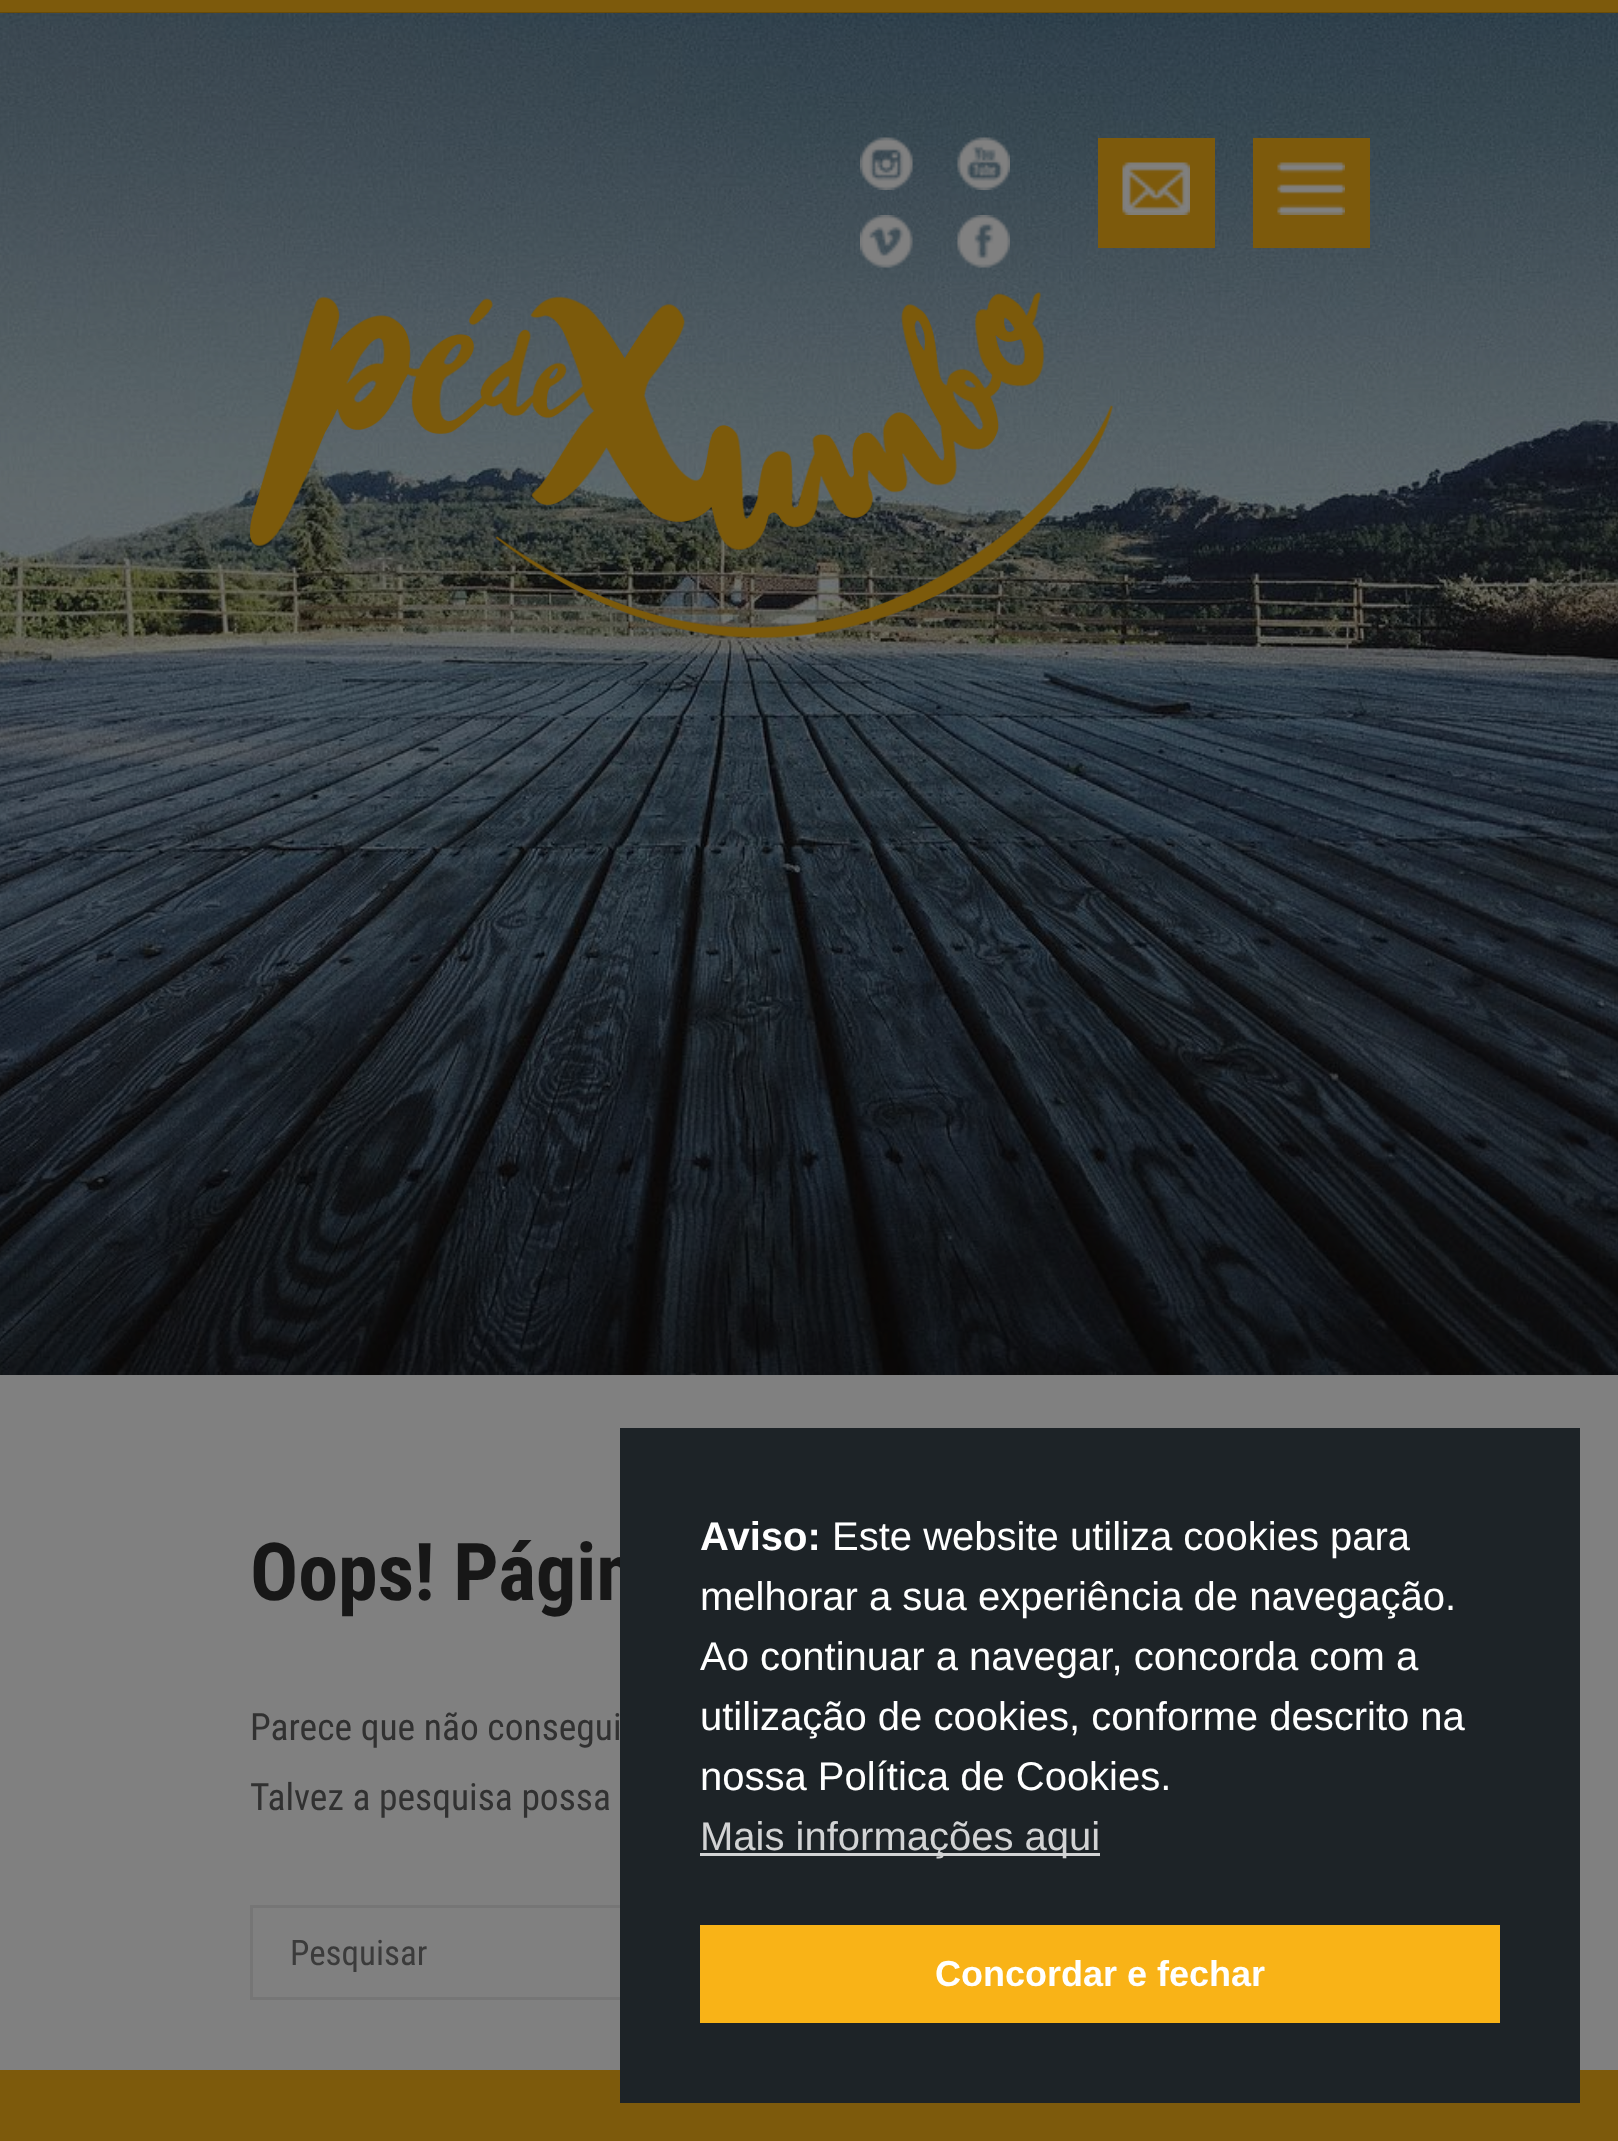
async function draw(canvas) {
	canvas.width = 1618;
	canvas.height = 2141;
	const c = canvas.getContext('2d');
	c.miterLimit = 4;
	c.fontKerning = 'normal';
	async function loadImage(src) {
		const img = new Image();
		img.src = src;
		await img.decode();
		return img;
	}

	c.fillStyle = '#808080';
	c.fillRect(0, 0, 1618, 2141);
	c.drawImage(await loadImage('img1.png'), 0, 13, 1618, 1362);
	c.fillStyle = '#7d5a0c';
	c.fillRect(0, 0, 1618, 13);
	c.drawImage(await loadImage('img2.png'), 0, 12, 1618, 1363);
	c.drawImage(await loadImage('img3.png'), 860, 137, 53, 53);
	c.drawImage(await loadImage('img4.png'), 957, 137, 53, 53);
	c.drawImage(await loadImage('img5.png'), 860, 215, 53, 53);
	c.drawImage(await loadImage('img6.png'), 957, 215, 53, 53);
	c.fillRect(1098, 138, 117, 110);
	c.drawImage(await loadImage('img7.png'), 1122, 162, 68, 53);
	c.fillRect(1253, 138, 117, 110);
	c.drawImage(await loadImage('img8.png'), 1277, 162, 68, 53);
	c.drawImage(await loadImage('img9.png'), 250, 292, 863, 346);
	c.font = 'bold 80px Roboto Condensed';
	c.fillStyle = '#171717';
	c.fillText('Oops! Págin', 250, 1600);
	c.font = '37.5px Roboto Condensed';
	c.fillStyle = '#313131';
	c.fillText('Parece que não consegui', 250, 1740);
	c.fillText('Talvez a pesquisa possa', 250, 1810);
	c.strokeStyle = '#767676';
	c.lineWidth = 3;
	c.strokeRect(251.5, 1906.5, 717, 92);
	c.font = '35px Roboto Condensed';
	c.fillStyle = '#3b3b3b';
	c.fillText('Pesquisar', 290, 1965);
	c.fillStyle = '#7d5a0c';
	c.fillRect(0, 2070, 1618, 71);
	c.fillStyle = '#1d2327';
	c.fillRect(620, 1428, 960, 675);
	c.font = 'bold 40px Liberation Sans';
	c.fillStyle = '#fff';
	c.fillText('Aviso:', 700, 1550);
	c.font = '40px Liberation Sans';
	for (const [text, x, y] of [
		['Este website utiliza cookies para', 832, 1550],
		['melhorar a sua experiência de navegação.', 700, 1610],
		['Ao continuar a navegar, concorda com a', 700, 1670],
		['utilização de cookies, conforme descrito na', 700, 1730],
		['nossa Política de Cookies.', 700, 1790],
	]) {
		c.fillText(text, x, y);
	}
	c.fillStyle = '#d2d3d4';
	c.fillRect(700, 1853, 400, 3);
	c.fillText('Mais informações aqui', 700, 1850);
	c.fillStyle = '#f9b317';
	c.fillRect(700, 1925, 800, 98);
	c.font = 'bold 36px Liberation Sans';
	c.fillStyle = '#fff';
	c.fillText('Concordar e fechar', 935, 1986);
}

draw(document.querySelector('canvas'));
